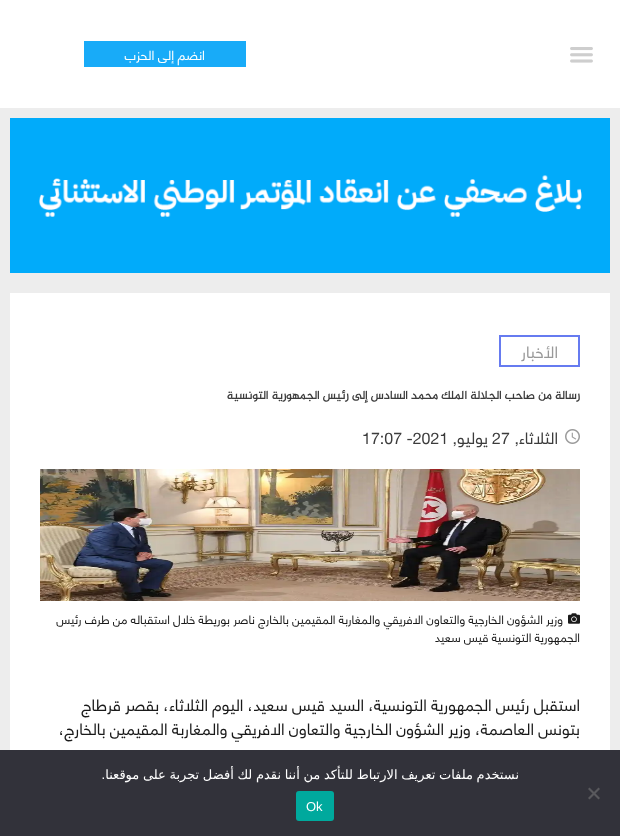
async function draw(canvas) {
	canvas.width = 620;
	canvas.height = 836;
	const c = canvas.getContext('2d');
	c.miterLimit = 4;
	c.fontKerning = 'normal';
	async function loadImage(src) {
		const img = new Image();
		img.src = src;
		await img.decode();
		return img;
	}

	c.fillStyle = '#ededed';
	c.fillRect(0, 0, 620, 836);
	c.fillStyle = '#fff';
	c.fillRect(0, 0, 620, 108);
	c.drawImage(await loadImage('img1.png'), 570, 47, 23, 16);
	c.fillStyle = '#18abf8';
	c.fillRect(84, 41, 162, 26);
	c.direction = 'rtl';
	c.font = '13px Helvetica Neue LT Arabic';
	c.fillStyle = '#fff';
	c.fillText('انضم إلى الحزب', 205, 60);
	c.drawImage(await loadImage('img2.png'), 10, 118, 600, 155);
	c.fillRect(10, 293, 600, 457);
	c.strokeStyle = '#667bf0';
	c.lineWidth = 2;
	c.strokeRect(500, 336, 79, 30);
	c.font = '16px Helvetica Neue LT Arabic';
	c.fillStyle = '#999';
	c.fillText('الأخبار', 558, 358);
	c.font = 'bold 12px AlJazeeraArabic';
	c.fillStyle = '#3c3c3c';
	c.fillText('رسالة من صاحب الجلالة الملك محمد السادس إلى رئيس الجمهورية التونسية', 580, 399);
	c.drawImage(await loadImage('img3.png'), 565, 429, 15, 15);
	c.font = '16px Helvetica Neue LT Arabic';
	c.fillText('الثلاثاء,', 558, 444);
	c.direction = 'ltr';
	c.fillText('27', 492, 444);
	c.direction = 'rtl';
	c.fillText('يوليو,', 488, 444);
	c.direction = 'ltr';
	c.fillText('17:07 -2021', 362, 444);
	c.drawImage(await loadImage('img4.png'), 40, 469, 540, 132);
	c.drawImage(await loadImage('img5.png'), 568, 613, 12, 11);
	c.direction = 'rtl';
	c.font = '12px Helvetica Neue LT Arabic';
	c.fillStyle = '#1a1a1a';
	c.fillText('وزير الشؤون الخارجية والتعاون الافريقي والمغاربة المقيمين بالخارج ناصر بوريطة خلال استقباله من طرف رئيس', 563, 624);
	c.fillText('الجمهورية التونسية قيس سعيد', 580, 642);
	c.font = '16px Helvetica Neue LT Arabic';
	c.fillText('استقبل رئيس الجمهورية التونسية، السيد قيس سعيد، اليوم الثلاثاء، بقصر قرطاج', 580, 711);
	c.fillText('بتونس العاصمة، وزير الشؤون الخارجية والتعاون الافريقي والمغاربة المقيمين بالخارج،', 580, 735);
	c.fillStyle = '#32323a';
	c.fillRect(0, 750, 620, 86);
	c.wordSpacing = '-0.5px';
	c.font = '13px DejaVu Sans';
	c.fillStyle = '#fff';
	c.fillText('نستخدم ملفات تعريف الارتباط للتأكد من أننا نقدم لك أفضل تجربة على موقعنا', 519, 779);
	c.wordSpacing = '0px';
	c.font = '13px Liberation Sans';
	c.fillText('.', 105, 779);
	c.fillStyle = '#59595d';
	c.beginPath();
	c.moveTo(598.5, 787.5);
	c.lineTo(600, 789);
	c.lineTo(589.5, 799.5);
	c.lineTo(588, 798);
	c.closePath();
	c.fill();
	c.beginPath();
	c.moveTo(588, 789);
	c.lineTo(589.5, 787.5);
	c.lineTo(600, 798);
	c.lineTo(598.5, 799.5);
	c.closePath();
	c.fill();
	c.fillStyle = '#00a99d';
	c.beginPath();
	c.roundRect(296, 791, 38, 30, 3);
	c.fill();
	c.direction = 'ltr';
	c.fillStyle = '#fff';
	c.fillText('Ok', 306, 811);
}

draw(document.querySelector('canvas'));
